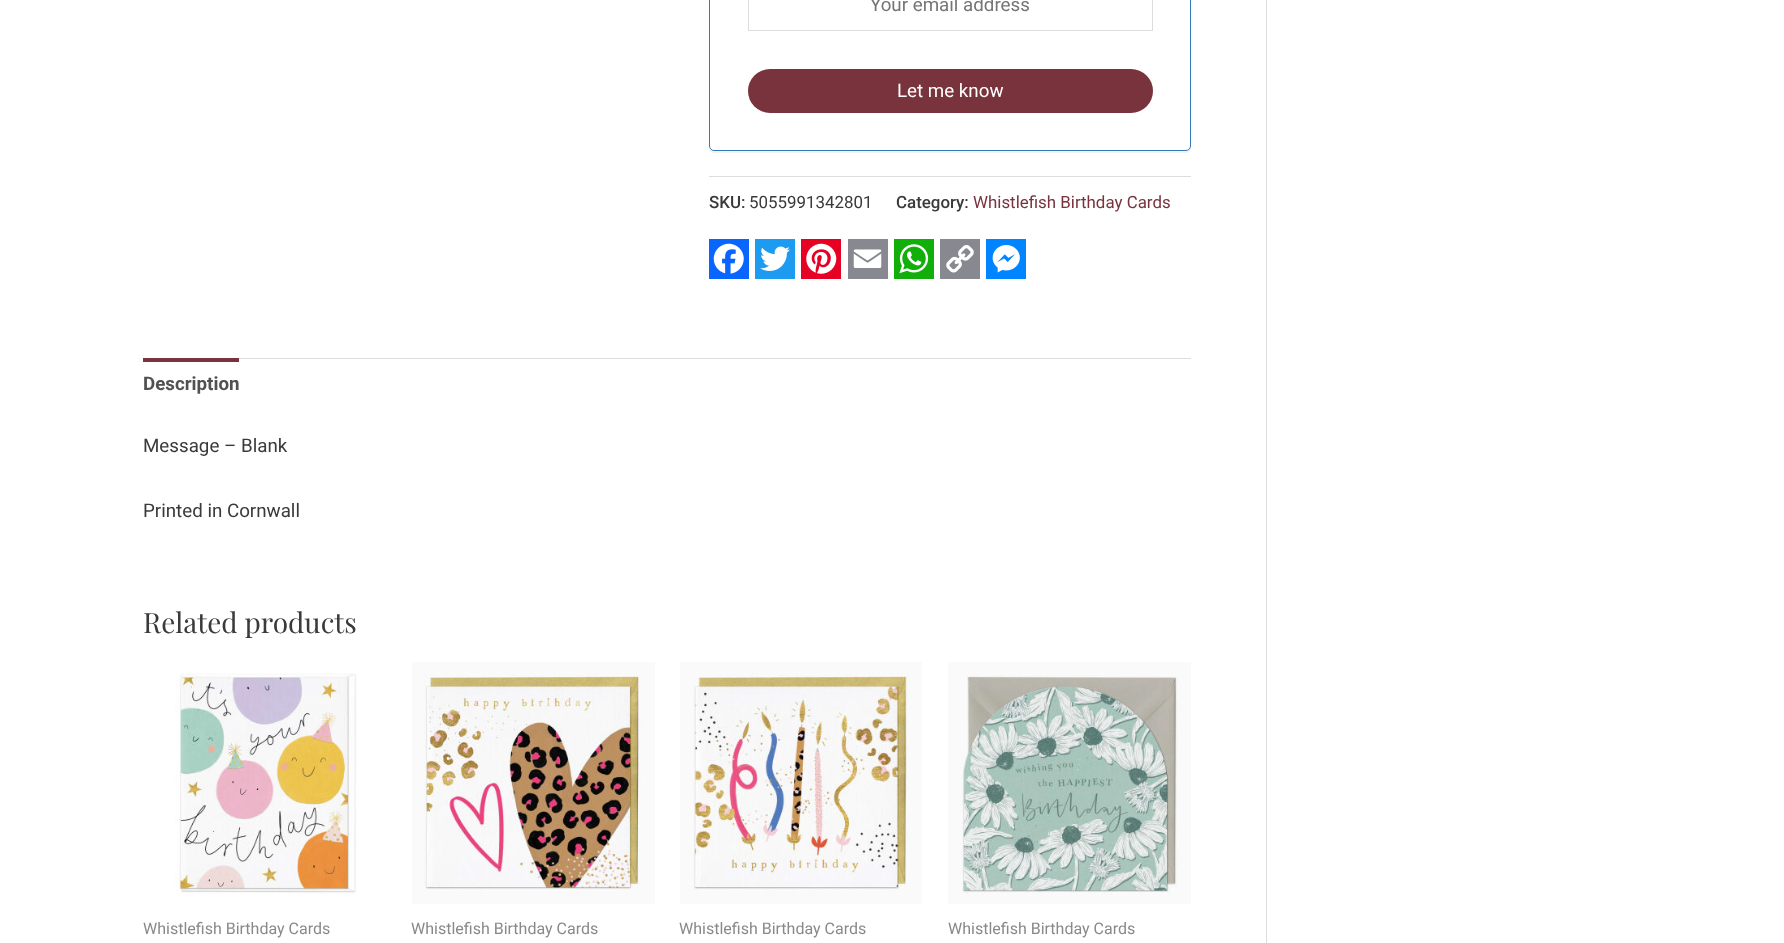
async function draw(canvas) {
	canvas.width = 1784;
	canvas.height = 943;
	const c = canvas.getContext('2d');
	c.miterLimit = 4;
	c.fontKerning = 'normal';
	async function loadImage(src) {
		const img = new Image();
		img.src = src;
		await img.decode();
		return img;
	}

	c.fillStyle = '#fff';
	c.fillRect(0, 0, 1784, 943);
	c.fillStyle = '#ddd';
	c.fillRect(1266, 0, 1, 943);
	c.save();
	c.beginPath();
	c.moveTo(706, 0);
	c.lineTo(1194, 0);
	c.lineTo(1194, 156);
	c.lineTo(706, 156);
	c.closePath();
	c.moveTo(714, -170);
	c.lineTo(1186, -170);
	c.bezierCurveTo(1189, -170, 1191, -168, 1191, -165);
	c.lineTo(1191, 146);
	c.bezierCurveTo(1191, 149, 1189, 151, 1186, 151);
	c.lineTo(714, 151);
	c.bezierCurveTo(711, 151, 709, 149, 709, 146);
	c.lineTo(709, -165);
	c.bezierCurveTo(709, -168, 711, -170, 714, -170);
	c.closePath();
	c.clip('evenodd');
	c.fillStyle = '#0000000d';
	c.filter = 'blur(0.5px)';
	c.beginPath();
	c.roundRect(709, -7, 482, 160, 5);
	c.fill();
	c.filter = 'none';
	c.restore();
	c.beginPath();
	c.roundRect(709.5, -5.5, 481, 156, 4.5);
	c.strokeStyle = '#337ab7';
	c.stroke();
	c.strokeStyle = '#ddd';
	c.strokeRect(748.5, -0.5, 404, 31);
	c.font = '18.75px Roboto';
	c.fillStyle = '#757575';
	c.fillText('Your email address', 870, 11);
	c.fillStyle = '#78333c';
	c.beginPath();
	c.roundRect(748, 69, 405, 44, 22);
	c.fill();
	c.fillStyle = '#fff';
	c.fillText('Let me know', 897, 97);
	c.fillStyle = '#ddd';
	c.fillRect(709, 176, 482, 1);
	c.font = '500 16.9px Roboto';
	c.fillStyle = '#3a3a3a';
	c.fillText('SKU:', 709, 208);
	c.font = '16.9px Roboto';
	c.fillText('5055991342801', 749, 208);
	c.font = '500 16.9px Roboto';
	c.fillText('Category:', 896, 208);
	c.font = '16.9px Roboto';
	c.fillStyle = '#78333c';
	c.fillText('Whistlefish Birthday Cards', 973, 208);
	c.fillStyle = '#0866ff';
	c.fillRect(709, 239, 40, 40);
	c.drawImage(await loadImage('img1.png'), 713, 243, 31, 31);
	c.fillStyle = '#1d9bf0';
	c.fillRect(755, 239, 40, 40);
	c.drawImage(await loadImage('img2.png'), 760, 246, 30, 25);
	c.fillStyle = '#e60023';
	c.fillRect(801, 239, 40, 40);
	c.drawImage(await loadImage('img3.png'), 806, 243, 31, 31);
	c.fillStyle = '#888990';
	c.fillRect(848, 239, 40, 40);
	c.drawImage(await loadImage('img4.png'), 853, 249, 29, 19);
	c.fillStyle = '#12af0a';
	c.fillRect(894, 239, 40, 40);
	c.drawImage(await loadImage('img5.png'), 899, 244, 30, 30);
	c.fillStyle = '#888990';
	c.fillRect(940, 239, 40, 40);
	c.drawImage(await loadImage('img6.png'), 946, 245, 28, 28);
	c.fillStyle = '#0084ff';
	c.fillRect(986, 239, 40, 40);
	c.drawImage(await loadImage('img7.png'), 992, 245, 28, 28);
	c.fillStyle = '#ddd';
	c.fillRect(239, 358, 952, 1);
	c.fillStyle = '#78333c';
	c.fillRect(143, 358, 96, 4);
	c.font = 'bold 18.75px Roboto';
	c.fillStyle = '#515151';
	c.fillText('Description', 143, 390);
	c.font = '18.75px Roboto';
	c.fillStyle = '#3a3a3a';
	c.fillText('Message – Blank', 143, 452);
	c.fillText('Printed in Cornwall', 143, 517);
	c.font = '28px Playfair Display';
	c.fillText('Related products', 143, 633);
	c.drawImage(await loadImage('img8.png'), 175, 673, 182, 221);
	c.font = '16px Roboto';
	c.fillStyle = '#898989';
	c.fillText('Whistlefish Birthday Cards', 143, 934);
	c.drawImage(await loadImage('img9.png'), 412, 662, 243, 242);
	c.fillText('Whistlefish Birthday Cards', 411, 934);
	c.drawImage(await loadImage('img10.png'), 680, 662, 242, 242);
	c.fillText('Whistlefish Birthday Cards', 679, 934);
	c.drawImage(await loadImage('img11.png'), 948, 662, 243, 242);
	c.fillText('Whistlefish Birthday Cards', 948, 934);
}

draw(document.querySelector('canvas'));
